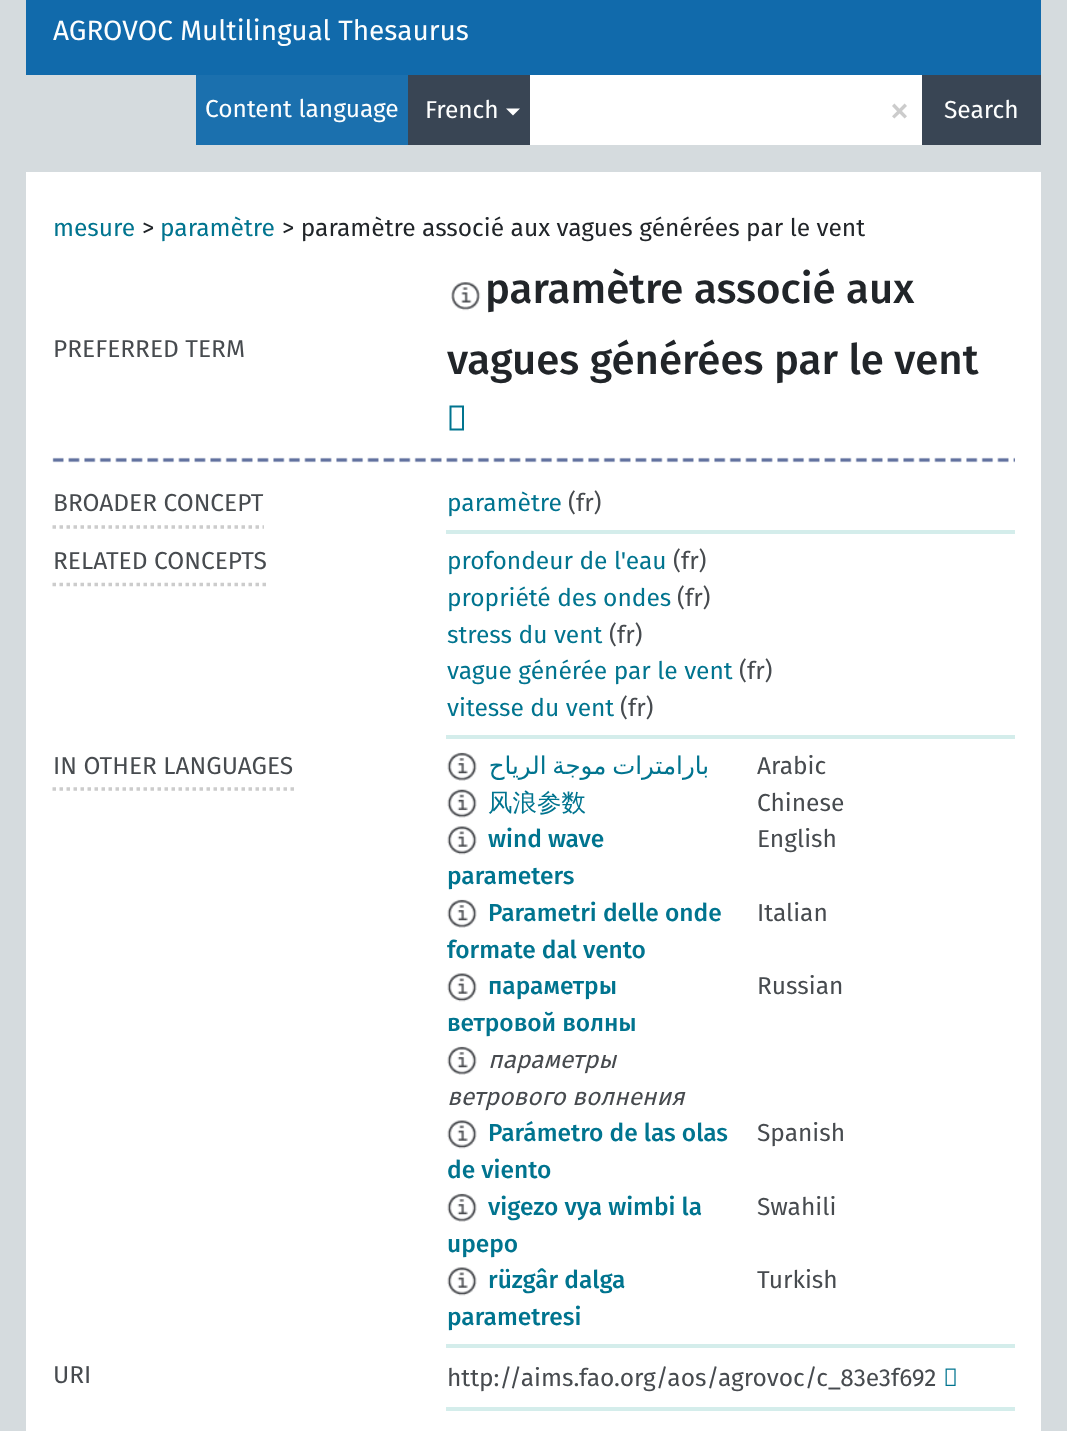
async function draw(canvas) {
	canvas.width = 1067;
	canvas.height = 1431;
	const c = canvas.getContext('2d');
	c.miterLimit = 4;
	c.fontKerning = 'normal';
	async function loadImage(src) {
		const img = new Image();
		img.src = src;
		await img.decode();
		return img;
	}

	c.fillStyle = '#d5dbde';
	c.fillRect(0, 0, 1067, 1431);
	c.fillStyle = '#116aab';
	c.fillRect(26, 0, 1015, 75);
	c.font = '28px Fira Sans';
	c.fillStyle = '#fdfefe';
	c.fillText('AGROVOC Multilingual Thesaurus', 53, 40);
	c.fillStyle = '#1b70ae';
	c.fillRect(196, 75, 212, 70);
	c.font = '24.5px Fira Sans';
	c.fillStyle = '#fdfefe';
	c.fillText('Content language', 205, 117);
	c.fillStyle = '#394554';
	c.fillRect(408, 75, 122, 70);
	c.fillStyle = '#fdfefe';
	c.fillText('French', 425, 118);
	c.fillStyle = '#fff';
	c.beginPath();
	c.moveTo(506, 108.5);
	c.lineTo(520, 108.5);
	c.lineTo(513, 115.5);
	c.closePath();
	c.fill();
	c.fillRect(530, 75, 392, 70);
	c.font = '42px Fira Sans';
	c.fillStyle = '#ccc';
	c.fillText('×', 889, 124);
	c.fillStyle = '#394554';
	c.fillRect(922, 75, 119, 70);
	c.font = '24.5px Fira Sans';
	c.fillStyle = '#fdfefe';
	c.fillText('Search', 944, 118);
	c.fillStyle = '#fff';
	c.fillRect(26, 172, 1015, 1259);
	c.fillStyle = '#00748f';
	c.fillText('mesure', 53, 236);
	c.fillStyle = '#212529';
	c.fillText('>', 142, 236);
	c.fillStyle = '#00748f';
	c.fillText('paramètre', 160, 236);
	c.fillStyle = '#212529';
	c.fillText('> paramètre associé aux vagues générées par le vent', 282, 236);
	c.fillStyle = '#474b4f';
	c.fillText('PREFERRED TERM', 53, 357);
	c.drawImage(await loadImage('img1.png'), 451, 282, 30, 29);
	c.font = '500 42px Fira Sans';
	c.fillStyle = '#212529';
	c.fillText('paramètre associé aux', 485, 303);
	c.fillText('vagues générées par le vent', 447, 374);
	c.fillStyle = '#00748f';
	c.beginPath();
	c.moveTo(449.5, 430.5);
	c.lineTo(449.5, 405.5);
	c.lineTo(464, 405.5);
	c.lineTo(464, 430.5);
	c.closePath();
	c.moveTo(451.5, 428.5);
	c.lineTo(462, 428.5);
	c.lineTo(462, 407.5);
	c.lineTo(451.5, 407.5);
	c.closePath();
	c.fill();
	c.drawImage(await loadImage('img2.png'), 52, 457, 963, 6);
	c.beginPath();
	c.moveTo(52.5, 527);
	c.lineTo(264, 527);
	c.strokeStyle = '#ccc';
	c.lineWidth = 3.5;
	c.setLineDash([3.5, 3.5]);
	c.stroke();
	c.font = '24.5px Fira Sans';
	c.fillStyle = '#474b4f';
	c.fillText('BROADER CONCEPT', 53, 511);
	c.fillStyle = '#d4edeb';
	c.fillRect(446, 530, 569, 4);
	c.fillStyle = '#00748f';
	c.fillText('paramètre', 447, 511);
	c.fillStyle = '#474b4f';
	c.fillText('(fr)', 568, 511);
	c.beginPath();
	c.moveTo(52.5, 584.5);
	c.lineTo(266, 584.5);
	c.stroke();
	c.fillText('RELATED CONCEPTS', 53, 569);
	c.fillStyle = '#d4edeb';
	c.fillRect(446, 735, 569, 4);
	c.fillStyle = '#00748f';
	c.fillText('profondeur de l\'eau', 447, 569);
	c.fillStyle = '#474b4f';
	c.fillText('(fr)', 673, 569);
	c.fillStyle = '#00748f';
	c.fillText('propriété des ondes', 447, 606);
	c.fillStyle = '#474b4f';
	c.fillText('(fr)', 677, 606);
	c.fillStyle = '#00748f';
	c.fillText('stress du vent', 447, 643);
	c.fillStyle = '#474b4f';
	c.fillText('(fr)', 609, 643);
	c.fillStyle = '#00748f';
	c.fillText('vague générée par le vent', 447, 679);
	c.fillStyle = '#474b4f';
	c.fillText('(fr)', 739, 679);
	c.fillStyle = '#00748f';
	c.fillText('vitesse du vent', 447, 716);
	c.fillStyle = '#474b4f';
	c.fillText('(fr)', 620, 716);
	c.beginPath();
	c.moveTo(52.5, 789);
	c.lineTo(294, 789);
	c.stroke();
	c.fillText('IN OTHER LANGUAGES', 53, 774);
	c.fillStyle = '#d4edeb';
	c.fillRect(446, 1344, 569, 4);
	c.drawImage(await loadImage('img3.png'), 447, 752, 30, 29);
	c.wordSpacing = '-2px';
	c.direction = 'rtl';
	c.font = '24.5px DejaVu Sans';
	c.fillStyle = '#00748f';
	c.fillText('بارامترات موجة الرياح', 709, 774);
	c.wordSpacing = '0px';
	c.direction = 'ltr';
	c.font = '24.5px Fira Sans';
	c.fillStyle = '#474b4f';
	c.fillText('Arabic', 757, 774);
	c.drawImage(await loadImage('img4.png'), 447, 789, 30, 29);
	c.font = '500 24.5px WenQuanYi Zen Hei';
	c.fillStyle = '#00748f';
	c.fillText('风浪参数', 488, 811);
	c.font = '24.5px Fira Sans';
	c.fillStyle = '#474b4f';
	c.fillText('Chinese', 757, 811);
	c.drawImage(await loadImage('img5.png'), 447, 826, 30, 29);
	c.font = '500 24.5px Fira Sans';
	c.fillStyle = '#00748f';
	c.fillText('wind wave', 488, 847);
	c.fillText('parameters', 447, 884);
	c.font = '24.5px Fira Sans';
	c.fillStyle = '#474b4f';
	c.fillText('English', 757, 847);
	c.drawImage(await loadImage('img3.png'), 447, 899, 30, 29);
	c.font = '500 24.5px Fira Sans';
	c.fillStyle = '#00748f';
	c.fillText('Parametri delle onde', 488, 921);
	c.fillText('formate dal vento', 447, 958);
	c.font = '24.5px Fira Sans';
	c.fillStyle = '#474b4f';
	c.fillText('Italian', 757, 921);
	c.drawImage(await loadImage('img5.png'), 447, 973, 30, 29);
	c.font = '500 24.5px Fira Sans';
	c.fillStyle = '#00748f';
	c.fillText('параметры', 488, 994);
	c.fillText('ветровой волны', 447, 1031);
	c.font = '24.5px Fira Sans';
	c.fillStyle = '#474b4f';
	c.fillText('Russian', 757, 994);
	c.drawImage(await loadImage('img3.png'), 447, 1046, 30, 29);
	c.font = 'italic 24.5px Fira Sans';
	c.fillText('параметры', 488, 1068);
	c.fillText('ветрового волнения', 447, 1105);
	c.drawImage(await loadImage('img5.png'), 447, 1120, 30, 29);
	c.font = '500 24.5px Fira Sans';
	c.fillStyle = '#00748f';
	c.fillText('Parámetro de las olas', 488, 1141);
	c.fillText('de viento', 447, 1178);
	c.font = '24.5px Fira Sans';
	c.fillStyle = '#474b4f';
	c.fillText('Spanish', 757, 1141);
	c.drawImage(await loadImage('img3.png'), 447, 1193, 30, 29);
	c.font = '500 24.5px Fira Sans';
	c.fillStyle = '#00748f';
	c.fillText('vigezo vya wimbi la', 488, 1215);
	c.fillText('upepo', 447, 1252);
	c.font = '24.5px Fira Sans';
	c.fillStyle = '#474b4f';
	c.fillText('Swahili', 757, 1215);
	c.drawImage(await loadImage('img5.png'), 447, 1267, 30, 29);
	c.font = '500 24.5px Fira Sans';
	c.fillStyle = '#00748f';
	c.fillText('rüzgâr dalga', 488, 1288);
	c.fillText('parametresi', 447, 1325);
	c.font = '24.5px Fira Sans';
	c.fillStyle = '#474b4f';
	c.fillText('Turkish', 757, 1288);
	c.fillText('URI', 53, 1383);
	c.fillStyle = '#d4edeb';
	c.fillRect(446, 1407, 569, 4);
	c.fillStyle = '#474b4f';
	c.fillText('http://aims.fao.org/aos/agrovoc/c_83e3f692', 447, 1386);
	c.drawImage(await loadImage('img6.png'), 945, 1368, 11, 18);
}

draw(document.querySelector('canvas'));
